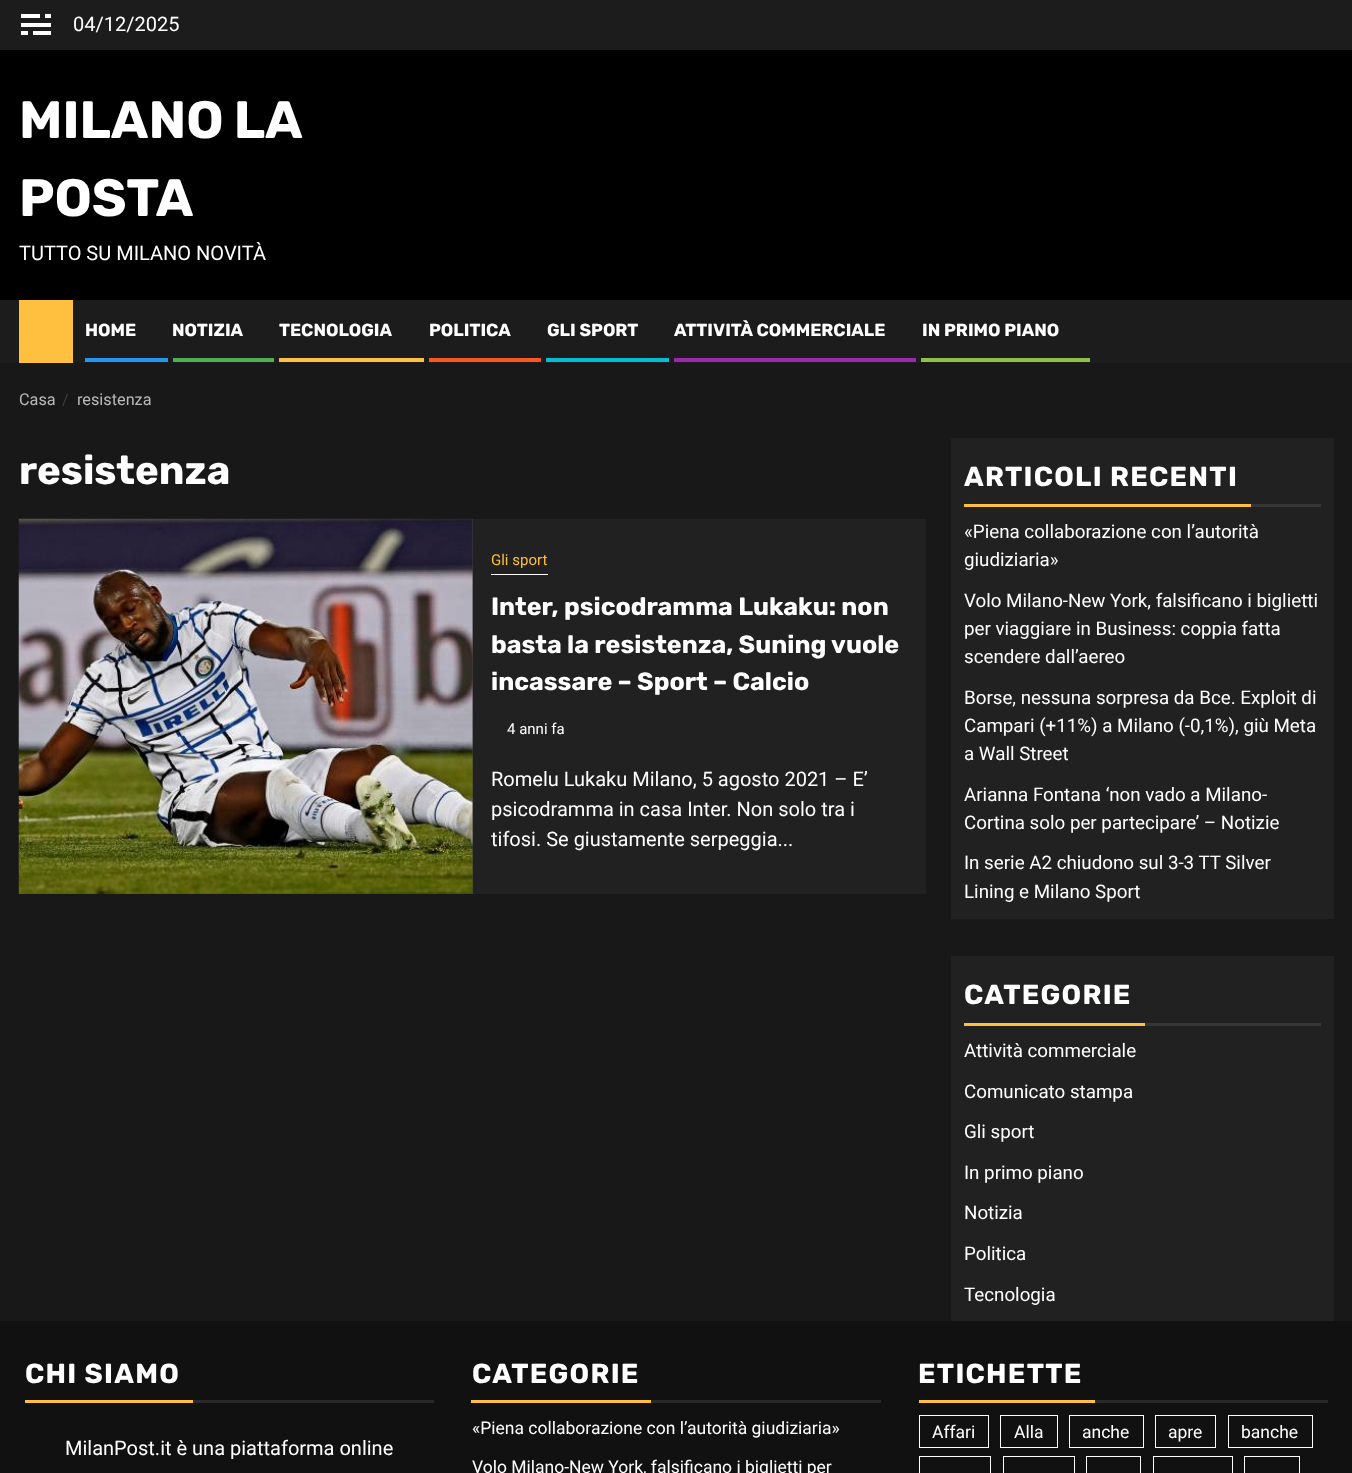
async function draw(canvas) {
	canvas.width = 1352;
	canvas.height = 1473;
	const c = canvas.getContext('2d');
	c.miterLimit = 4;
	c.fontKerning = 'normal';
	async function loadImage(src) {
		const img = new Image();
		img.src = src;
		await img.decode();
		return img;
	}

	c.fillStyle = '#181818';
	c.fillRect(0, 0, 1352, 1473);
	for (const [x, y, w, h, color] of [
		[0, 50, 1352, 250, '#000'],
		[0, 0, 1352, 50, '#1c1c1c'],
		[45, 14, 6, 4, '#fff'],
		[21, 14, 19, 4, '#fff'],
		[21, 23, 30, 4, '#fff'],
		[33, 31, 18, 4, '#fff'],
		[21, 31, 7, 4, '#fff'],
	]) {
		c.fillStyle = color;
		c.fillRect(x, y, w, h);
	}
	c.font = '20px Roboto';
	c.fillText('04/12/2025', 73, 31);
	c.wordSpacing = '-1px';
	c.font = 'bold 52.5px Rubik';
	c.fillText('MILANO LA', 19, 138);
	c.wordSpacing = '0px';
	c.fillText('POSTA', 19, 216);
	c.font = '20px Roboto';
	c.fillText('TUTTO SU MILANO NOVITÀ', 19, 260);
	c.fillStyle = '#1c1c1c';
	c.fillRect(0, 300, 1352, 63);
	c.fillStyle = '#ffbf3f';
	c.fillRect(19, 300, 54, 63);
	c.font = 'bold 17.5px Rubik';
	c.fillStyle = '#fff';
	c.fillText('HOME', 85, 336);
	c.fillStyle = '#2196f3';
	c.fillRect(85, 358, 83, 4);
	c.fillStyle = '#fff';
	c.fillText('NOTIZIA', 172, 336);
	c.fillStyle = '#4caf50';
	c.fillRect(173, 358, 101, 4);
	c.fillStyle = '#fff';
	c.fillText('TECNOLOGIA', 279, 336);
	c.fillStyle = '#ffbf3f';
	c.fillRect(279, 358, 145, 4);
	c.fillStyle = '#fff';
	c.fillText('POLITICA', 429, 336);
	c.fillStyle = '#ff5722';
	c.fillRect(429, 358, 112, 4);
	c.fillStyle = '#fff';
	c.fillText('GLI SPORT', 547, 336);
	c.fillStyle = '#00bcd4';
	c.fillRect(546, 358, 123, 4);
	c.fillStyle = '#fff';
	c.fillText('ATTIVITÀ COMMERCIALE', 674, 336);
	c.fillStyle = '#9c27b0';
	c.fillRect(674, 358, 242, 4);
	c.fillStyle = '#fff';
	c.fillText('IN PRIMO PIANO', 922, 336);
	c.fillStyle = '#8bc34a';
	c.fillRect(921, 358, 169, 4);
	c.font = '16.25px Roboto';
	c.fillStyle = '#bababa';
	c.fillText('Casa', 19, 405);
	c.fillStyle = '#393e46';
	c.fillText('/', 62, 405);
	c.fillStyle = '#bababa';
	c.fillText('resistenza', 77, 405);
	c.font = 'bold 40px Rubik';
	c.fillStyle = '#fff';
	c.fillText('resistenza', 19, 484);
	c.fillStyle = '#212121';
	c.fillRect(473, 519, 453, 375);
	c.fillStyle = '#404040';
	c.fillRect(19, 519, 454, 375);
	c.drawImage(await loadImage('img1.png'), 18, 518, 455, 376);
	c.fillStyle = '#fff';
	c.fillRect(491, 574, 57, 1);
	c.font = '15px Roboto';
	c.fillStyle = '#ffbf3f';
	c.fillText('Gli sport', 491, 565);
	c.font = 'bold 25px Rubik';
	c.fillStyle = '#fff';
	for (const [text, x, y] of [
		['Inter, psicodramma Lukaku: non', 491, 615],
		['basta la resistenza, Suning vuole', 491, 653],
		['incassare – Sport – Calcio', 491, 690],
	]) {
		c.fillText(text, x, y);
	}
	c.font = '15px Roboto';
	c.fillText('4 anni fa', 507, 734);
	c.font = '20px Roboto';
	for (const [text, x, y] of [
		['Romelu Lukaku Milano, 5 agosto 2021 – E’', 491, 786],
		['psicodramma in casa Inter. Non solo tra i', 491, 816],
		['tifosi. Se giustamente serpeggia...', 491, 846],
	]) {
		c.fillText(text, x, y);
	}
	c.fillStyle = '#212121';
	c.fillRect(951, 438, 383, 481);
	c.fillStyle = '#ffbf3f';
	c.fillRect(964, 504, 287, 3);
	c.letterSpacing = '1.25px';
	c.font = 'bold 27.5px Rubik';
	c.fillStyle = '#fff';
	c.fillText('ARTICOLI RECENTI', 964, 486);
	c.fillStyle = '#363636';
	c.fillRect(1251, 504, 70, 3);
	c.letterSpacing = '0px';
	c.font = '18.75px Roboto';
	c.fillStyle = '#fff';
	for (const [text, x, y] of [
		['«Piena collaborazione con l’autorità', 964, 538],
		['giudiziaria»', 964, 566],
		['Volo Milano-New York, falsificano i biglietti', 964, 607],
		['per viaggiare in Business: coppia fatta', 964, 635],
		['scendere dall’aereo', 964, 663],
		['Borse, nessuna sorpresa da Bce. Exploit di', 964, 704],
		['Campari (+11%) a Milano (-0,1%), giù Meta', 964, 732],
		['a Wall Street', 964, 760],
		['Arianna Fontana ‘non vado a Milano-', 964, 801],
		['Cortina solo per partecipare’ – Notizie', 964, 829],
		['In serie A2 chiudono sul 3-3 TT Silver', 964, 869],
		['Lining e Milano Sport', 964, 898],
	]) {
		c.fillText(text, x, y);
	}
	c.fillStyle = '#212121';
	c.fillRect(951, 956, 383, 365);
	c.fillStyle = '#ffbf3f';
	c.fillRect(964, 1023, 181, 3);
	c.letterSpacing = '1.25px';
	c.font = 'bold 27.5px Rubik';
	c.fillStyle = '#fff';
	c.fillText('CATEGORIE', 964, 1004);
	c.fillStyle = '#363636';
	c.fillRect(1145, 1023, 176, 3);
	c.letterSpacing = '0px';
	c.font = '18.75px Roboto';
	c.fillStyle = '#fff';
	for (const [text, x, y] of [
		['Attività commerciale', 964, 1057],
		['Comunicato stampa', 964, 1098],
		['Gli sport', 964, 1138],
		['In primo piano', 964, 1179],
		['Notizia', 964, 1219],
		['Politica', 964, 1260],
		['Tecnologia', 964, 1301],
	]) {
		c.fillText(text, x, y);
	}
	c.fillStyle = '#111';
	c.fillRect(0, 1321, 1352, 152);
	c.fillStyle = '#ffbf3f';
	c.fillRect(25, 1400, 168, 3);
	c.letterSpacing = '1.25px';
	c.font = 'bold 27.5px Rubik';
	c.fillStyle = '#fff';
	c.fillText('CHI SIAMO', 25, 1383);
	c.fillStyle = '#292929';
	c.fillRect(193, 1400, 241, 3);
	c.letterSpacing = '0px';
	c.font = '20px Roboto';
	c.fillStyle = '#fff';
	c.fillText('MilanPost.it è una piattaforma online', 65, 1455);
	c.fillStyle = '#ffbf3f';
	c.fillRect(471, 1400, 180, 3);
	c.letterSpacing = '1.25px';
	c.font = 'bold 27.5px Rubik';
	c.fillStyle = '#fff';
	c.fillText('CATEGORIE', 472, 1383);
	c.fillStyle = '#292929';
	c.fillRect(651, 1400, 230, 3);
	c.letterSpacing = '0px';
	c.font = '17.5px Roboto';
	c.fillStyle = '#fff';
	c.fillText('«Piena collaborazione con l’autorità giudiziaria»', 472, 1434);
	c.fillText('Volo Milano-New York, falsificano i biglietti per', 472, 1473);
	c.fillStyle = '#ffbf3f';
	c.fillRect(919, 1400, 176, 3);
	c.letterSpacing = '1.25px';
	c.font = 'bold 27.5px Rubik';
	c.fillStyle = '#fff';
	c.fillText('ETICHETTE', 918, 1383);
	c.fillStyle = '#292929';
	c.fillRect(1095, 1400, 233, 3);
	c.strokeStyle = '#fff';
	c.strokeRect(919.5, 1415.5, 69, 32);
	c.letterSpacing = '0px';
	c.font = '17.5px Roboto';
	c.fillStyle = '#fff';
	c.fillText('Affari', 932, 1438);
	c.strokeRect(1000.5, 1415.5, 57, 32);
	c.fillText('Alla', 1014, 1438);
	c.strokeRect(1069.5, 1415.5, 74, 32);
	c.fillText('anche', 1082, 1438);
	c.strokeRect(1155.5, 1415.5, 60, 32);
	c.fillText('apre', 1168, 1438);
	c.strokeRect(1228.5, 1415.5, 84, 32);
	c.fillText('banche', 1241, 1438);
	c.strokeRect(919.5, 1456.5, 71, 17);
	c.strokeRect(1003.5, 1456.5, 71, 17);
	c.strokeRect(1086.5, 1456.5, 54, 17);
	c.strokeRect(1153.5, 1456.5, 79, 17);
	c.strokeRect(1244.5, 1456.5, 55, 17);
}

draw(document.querySelector('canvas'));
